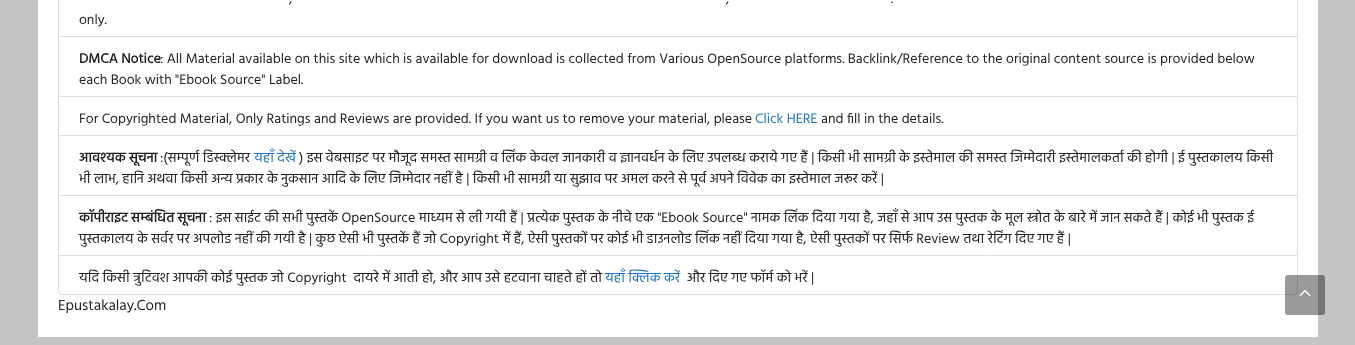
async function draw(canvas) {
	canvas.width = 1355;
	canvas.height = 345;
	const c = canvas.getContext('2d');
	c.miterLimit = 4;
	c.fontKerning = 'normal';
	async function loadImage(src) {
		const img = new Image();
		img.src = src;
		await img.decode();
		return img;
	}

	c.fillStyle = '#c4c4c4';
	c.fillRect(0, 0, 1355, 345);
	c.fillStyle = '#fff';
	c.fillRect(38, 0, 1280, 337);
	c.strokeStyle = '#dfdfdf';
	c.strokeRect(58.5, -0.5, 1239, 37);
	c.font = '14px Hind';
	c.fillStyle = '#222';
	for (const [text, x, y] of [
		[',', 289, 3],
		[',', 726, 3],
		['.', 891, 3],
		['only.', 79, 24],
	]) {
		c.fillText(text, x, y);
	}
	c.strokeRect(58.5, 36.5, 1239, 60);
	c.font = 'bold 14px Hind';
	c.fillText('DMCA Notice', 79, 63);
	c.font = '14px Hind';
	c.fillText(': All Material available on this site which is available for download is collected from Various OpenSource platforms. Backlink/Reference to the original content source is provided below', 160, 63);
	c.fillText('each Book with "Ebook Source" Label.', 79, 84);
	c.strokeRect(58.5, 96.5, 1239, 39);
	c.fillText('For Copyrighted Material, Only Ratings and Reviews are provided. If you want us to remove your material, please', 79, 123);
	c.fillStyle = '#1e73be';
	c.fillText('Click HERE', 755, 123);
	c.fillStyle = '#222';
	c.fillText('and fill in the details.', 821, 123);
	c.strokeRect(58.5, 135.5, 1239, 60);
	c.font = 'bold 14px Hind';
	c.fillText('आवश्यक सूचना', 79, 162);
	c.font = '14px Hind';
	c.fillText(':(सम्पूर्ण डिस्क्लेमर', 160, 162);
	c.fillStyle = '#1e73be';
	c.fillText('यहाँ देखें', 254, 162);
	c.fillStyle = '#222';
	c.fillText(') इस वेबसाइट पर मौजूद समस्त सामग्री व लिंक केवल जानकारी व ज्ञानवर्धन के लिए उपलब्ध कराये गए हैं | किसी भी सामग्री के इस्तेमाल की समस्त जिम्मेदारी इस्तेमालकर्ता की होगी | ई पुस्तकालय किसी', 299, 162);
	c.fillText('भी लाभ, हानि अथवा किसी अन्य प्रकार के नुकसान आदि के लिए जिम्मेदार नहीं है | किसी भी सामग्री या सुझाव पर अमल करने से पूर्व अपने विवेक का इस्तेमाल जरूर करें |', 79, 183);
	c.strokeRect(58.5, 195.5, 1239, 60);
	c.font = 'bold 14px Hind';
	c.fillText('कॉपीराइट सम्बंधित सूचना', 79, 222);
	c.font = '14px Hind';
	c.fillText(': इस साईट की सभी पुस्तकें OpenSource माध्यम से ली गयी हैं | प्रत्येक पुस्तक के नीचे एक "Ebook Source" नामक लिंक दिया गया है, जहाँ से आप उस पुस्तक के मूल स्त्रोत के बारे में जान सकते हैं | कोई भी पुस्तक ई', 209, 222);
	c.fillText('पुस्तकालय के सर्वर पर अपलोड नहीं की गयी है | कुछ ऐसी भी पुस्तकें हैं जो Copyright में हैं, ऐसी पुस्तकों पर कोई भी डाउनलोड लिंक नहीं दिया गया है, ऐसी पुस्तकों पर सिर्फ Review तथा रेटिंग दिए गए हैं |', 79, 243);
	c.fillStyle = '#fff';
	c.beginPath();
	c.roundRect(58.5, 255.5, 1239, 39, [0, 0, 3.5, 3.5]);
	c.fill();
	c.stroke();
	c.fillStyle = '#222';
	c.fillText('यदि किसी त्रुटिवश आपकी कोई पुस्तक जो Copyright  दायरे में आती हो, और आप उसे हटवाना चाहते हों तो', 79, 282);
	c.fillStyle = '#1e73be';
	c.fillText('यहाँ क्लिक करें', 605, 282);
	c.fillStyle = '#222';
	c.fillText('और दिए गए फॉर्म को भरें |', 687, 282);
	c.font = '15px Hind';
	c.fillText('Epustakalay.Com', 58, 310);
	c.fillStyle = '#00000066';
	c.beginPath();
	c.roundRect(1285, 275, 40, 40, 3);
	c.fill();
	c.drawImage(await loadImage('img1.png'), 1299, 289, 12, 8);
}

draw(document.querySelector('canvas'));
